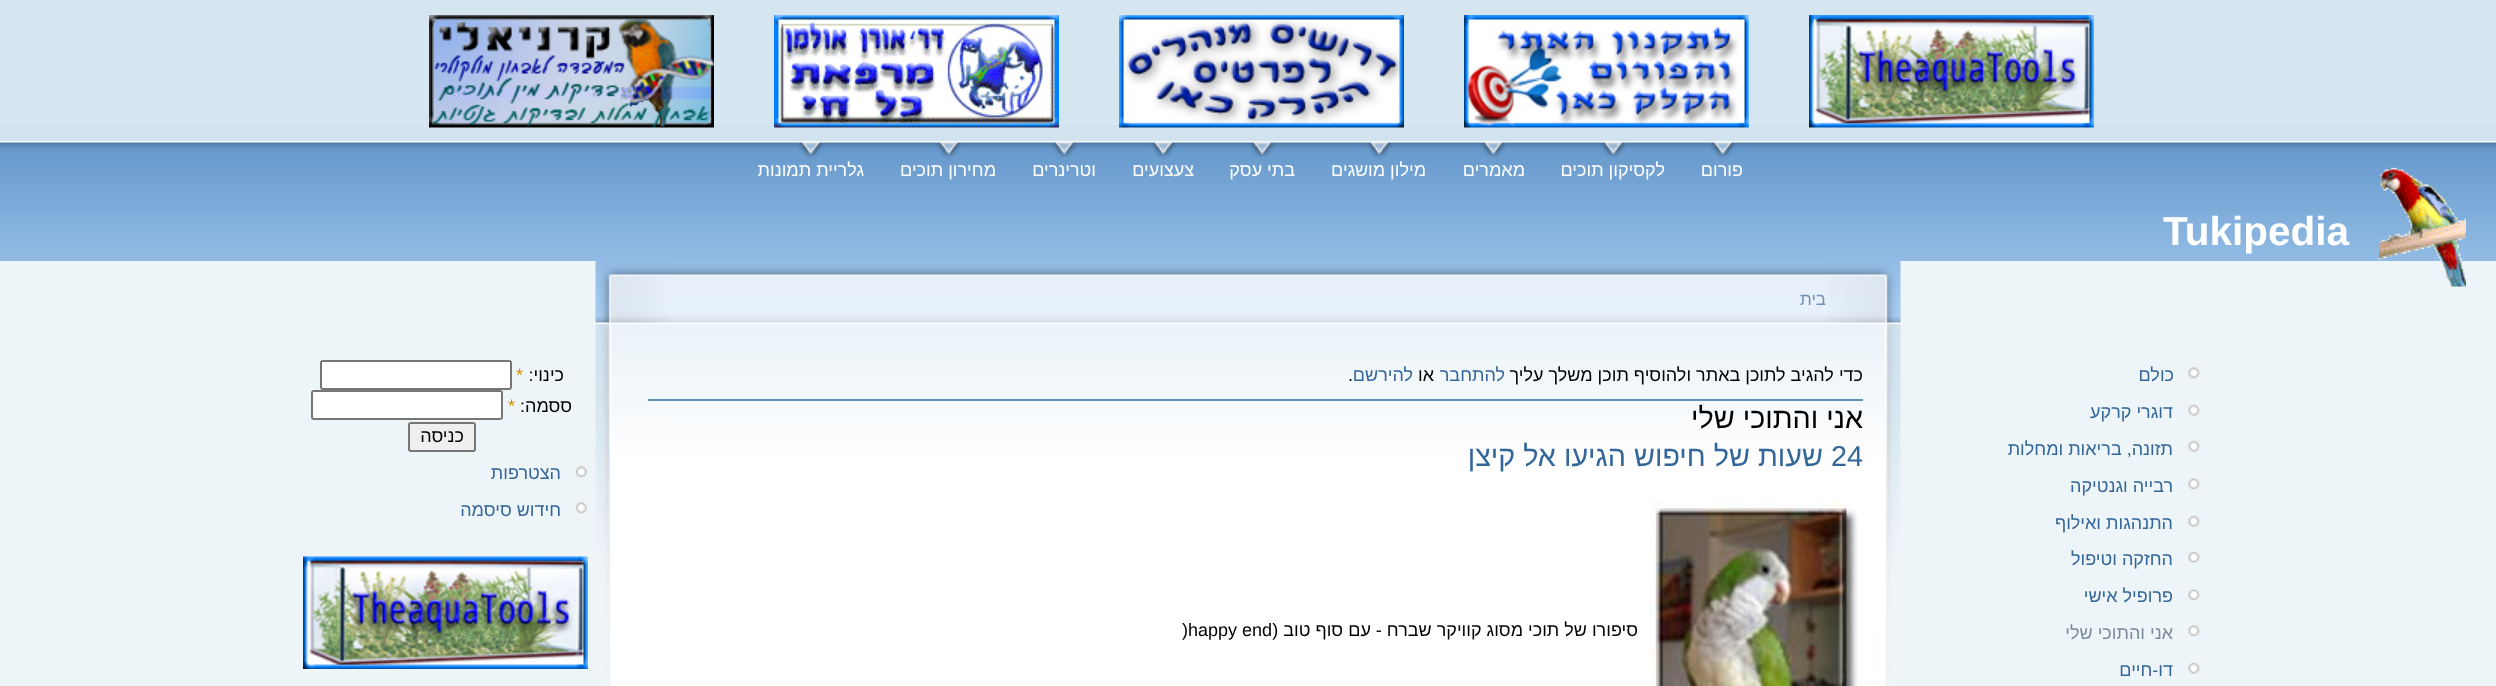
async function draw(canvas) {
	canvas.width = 2496;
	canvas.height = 686;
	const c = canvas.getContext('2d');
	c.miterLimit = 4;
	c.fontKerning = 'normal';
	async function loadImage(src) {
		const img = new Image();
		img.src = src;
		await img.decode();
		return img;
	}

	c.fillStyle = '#eef5f9';
	c.fillRect(0, 0, 2496, 686);
	c.fillStyle = '#d5e6f1';
	c.fillRect(0, 0, 2496, 125);
	c.fillStyle = '#d0e3ef';
	c.fillRect(0, 125, 2496, 16);
	c.drawImage(await loadImage('img1.png'), 1809, 15, 285, 113);
	c.drawImage(await loadImage('img2.png'), 1464, 15, 285, 113);
	c.drawImage(await loadImage('img3.png'), 1119, 15, 285, 113);
	c.drawImage(await loadImage('img4.png'), 774, 15, 285, 113);
	c.drawImage(await loadImage('img5.png'), 429, 15, 285, 113);
	c.drawImage(await loadImage('img6.png'), 0, 141, 2496, 120);
	c.drawImage(await loadImage('img7.png'), 1710, 142, 26, 16);
	c.direction = 'rtl';
	c.font = '18px Liberation Sans';
	c.fillStyle = '#fff';
	c.fillText('פורום', 1743, 176);
	c.drawImage(await loadImage('img8.png'), 1600, 142, 26, 16);
	c.fillText('לקסיקון תוכים', 1665, 176);
	c.drawImage(await loadImage('img9.png'), 1480, 142, 26, 16);
	c.fillText('מאמרים', 1525, 176);
	c.drawImage(await loadImage('img9.png'), 1366, 142, 26, 16);
	c.fillText('מילון מושגים', 1426, 176);
	c.drawImage(await loadImage('img8.png'), 1249, 142, 26, 16);
	c.fillText('בתי עסק', 1295, 176);
	c.drawImage(await loadImage('img9.png'), 1150, 142, 26, 16);
	c.fillText('צעצועים', 1194, 176);
	c.drawImage(await loadImage('img9.png'), 1051, 142, 26, 16);
	c.fillText('וטרינרים', 1096, 176);
	c.drawImage(await loadImage('img7.png'), 936, 142, 26, 16);
	c.fillText('מחירון תוכים', 996, 176);
	c.drawImage(await loadImage('img7.png'), 798, 142, 26, 16);
	c.fillText('גלריית תמונות', 864, 176);
	c.drawImage(await loadImage('img10.png'), 2379, 167, 87, 120);
	c.direction = 'ltr';
	c.font = 'bold 40.5px Liberation Sans';
	c.fillText('Tukipedia', 2163, 245);
	c.drawImage(await loadImage('img11.png'), 2188, 367, 12, 12);
	c.direction = 'rtl';
	c.font = '18px Liberation Sans';
	c.fillStyle = '#369';
	c.fillText('כולם', 2174, 381);
	c.drawImage(await loadImage('img12.png'), 2188, 404, 12, 12);
	c.fillText('דוגרי קרקע', 2173, 418);
	c.drawImage(await loadImage('img12.png'), 2188, 440, 12, 12);
	c.fillText('תזונה, בריאות ומחלות', 2173, 455);
	c.drawImage(await loadImage('img11.png'), 2188, 478, 12, 12);
	c.fillText('רבייה וגנטיקה', 2173, 492);
	c.drawImage(await loadImage('img12.png'), 2188, 515, 12, 12);
	c.fillText('התנהגות ואילוף', 2173, 529);
	c.drawImage(await loadImage('img12.png'), 2188, 551, 12, 12);
	c.fillText('החזקה וטיפול', 2173, 565);
	c.drawImage(await loadImage('img11.png'), 2188, 589, 12, 12);
	c.fillText('פרופיל אישי', 2173, 602);
	c.drawImage(await loadImage('img11.png'), 2188, 625, 12, 12);
	c.fillStyle = '#7c8b9c';
	c.fillText('אני והתוכי שלי', 2173, 639);
	c.drawImage(await loadImage('img12.png'), 2188, 662, 12, 12);
	c.fillStyle = '#369';
	c.fillText('דו-חיים', 2173, 676);
	c.fillStyle = '#fff';
	c.fillRect(670, 561, 980, 125);
	c.drawImage(await loadImage('img13.png'), 670, 261, 1156, 300);
	c.drawImage(await loadImage('img14.png'), 1826, 261, 75, 425);
	c.drawImage(await loadImage('img15.png'), 595, 261, 75, 425);
	c.font = '17px Liberation Sans';
	c.fillStyle = '#7390b6';
	c.fillText('בית', 1826, 305);
	c.font = '18px Liberation Sans';
	c.fillStyle = '#000';
	c.fillText('כדי להגיב לתוכן באתר ולהוסיף תוכן משלך עליך', 1863, 381);
	c.fillStyle = '#369';
	c.fillText('להתחבר', 1505, 381);
	c.fillStyle = '#000';
	c.fillText('או', 1434, 381);
	c.fillStyle = '#369';
	c.fillText('להירשם', 1413, 381);
	c.direction = 'ltr';
	c.fillStyle = '#000';
	c.fillText('.', 1348, 381);
	c.fillStyle = '#6094bc';
	c.fillRect(648, 399, 1215, 2);
	c.direction = 'rtl';
	c.font = '28.75px Liberation Sans';
	c.fillStyle = '#000';
	c.fillText('אני והתוכי שלי', 1863, 428);
	c.direction = 'ltr';
	c.fillStyle = '#369';
	c.fillText('24', 1831, 466);
	c.direction = 'rtl';
	c.fillText('שעות של חיפוש הגיעו אל קיצן', 1823, 466);
	c.drawImage(await loadImage('img16.png'), 1650, 502, 209, 184);
	c.font = '18px Liberation Sans';
	c.fillStyle = '#000';
	c.fillText('סיפורו של תוכי מסוג קוויקר שברח - עם סוף טוב (', 1638, 636);
	c.direction = 'ltr';
	c.fillText(')happy end', 1182, 636);
	c.direction = 'rtl';
	c.fillText('כינוי:', 564, 381);
	c.direction = 'ltr';
	c.fillStyle = '#d39000';
	c.fillText('*', 516, 381);
	c.fillStyle = '#fff';
	c.beginPath();
	c.roundRect(321, 361, 190, 28, 2);
	c.fill();
	c.strokeStyle = '#767676';
	c.lineWidth = 2;
	c.stroke();
	c.direction = 'rtl';
	c.fillStyle = '#000';
	c.fillText('ססמה:', 572, 412);
	c.direction = 'ltr';
	c.fillStyle = '#d39000';
	c.fillText('*', 508, 412);
	c.fillStyle = '#fff';
	c.beginPath();
	c.roundRect(312, 391, 190, 28, 2);
	c.fill();
	c.stroke();
	c.fillStyle = '#efefef';
	c.beginPath();
	c.roundRect(409, 423, 66, 28, 2);
	c.fill();
	c.stroke();
	c.direction = 'rtl';
	c.fillStyle = '#000';
	c.fillText('כניסה', 464, 442);
	c.drawImage(await loadImage('img17.png'), 575, 466, 12, 12);
	c.fillStyle = '#369';
	c.fillText('הצטרפות', 561, 479);
	c.drawImage(await loadImage('img17.png'), 575, 502, 12, 12);
	c.fillText('חידוש סיסמה', 561, 516);
	c.drawImage(await loadImage('img18.png'), 303, 556, 285, 113);
}

draw(document.querySelector('canvas'));
